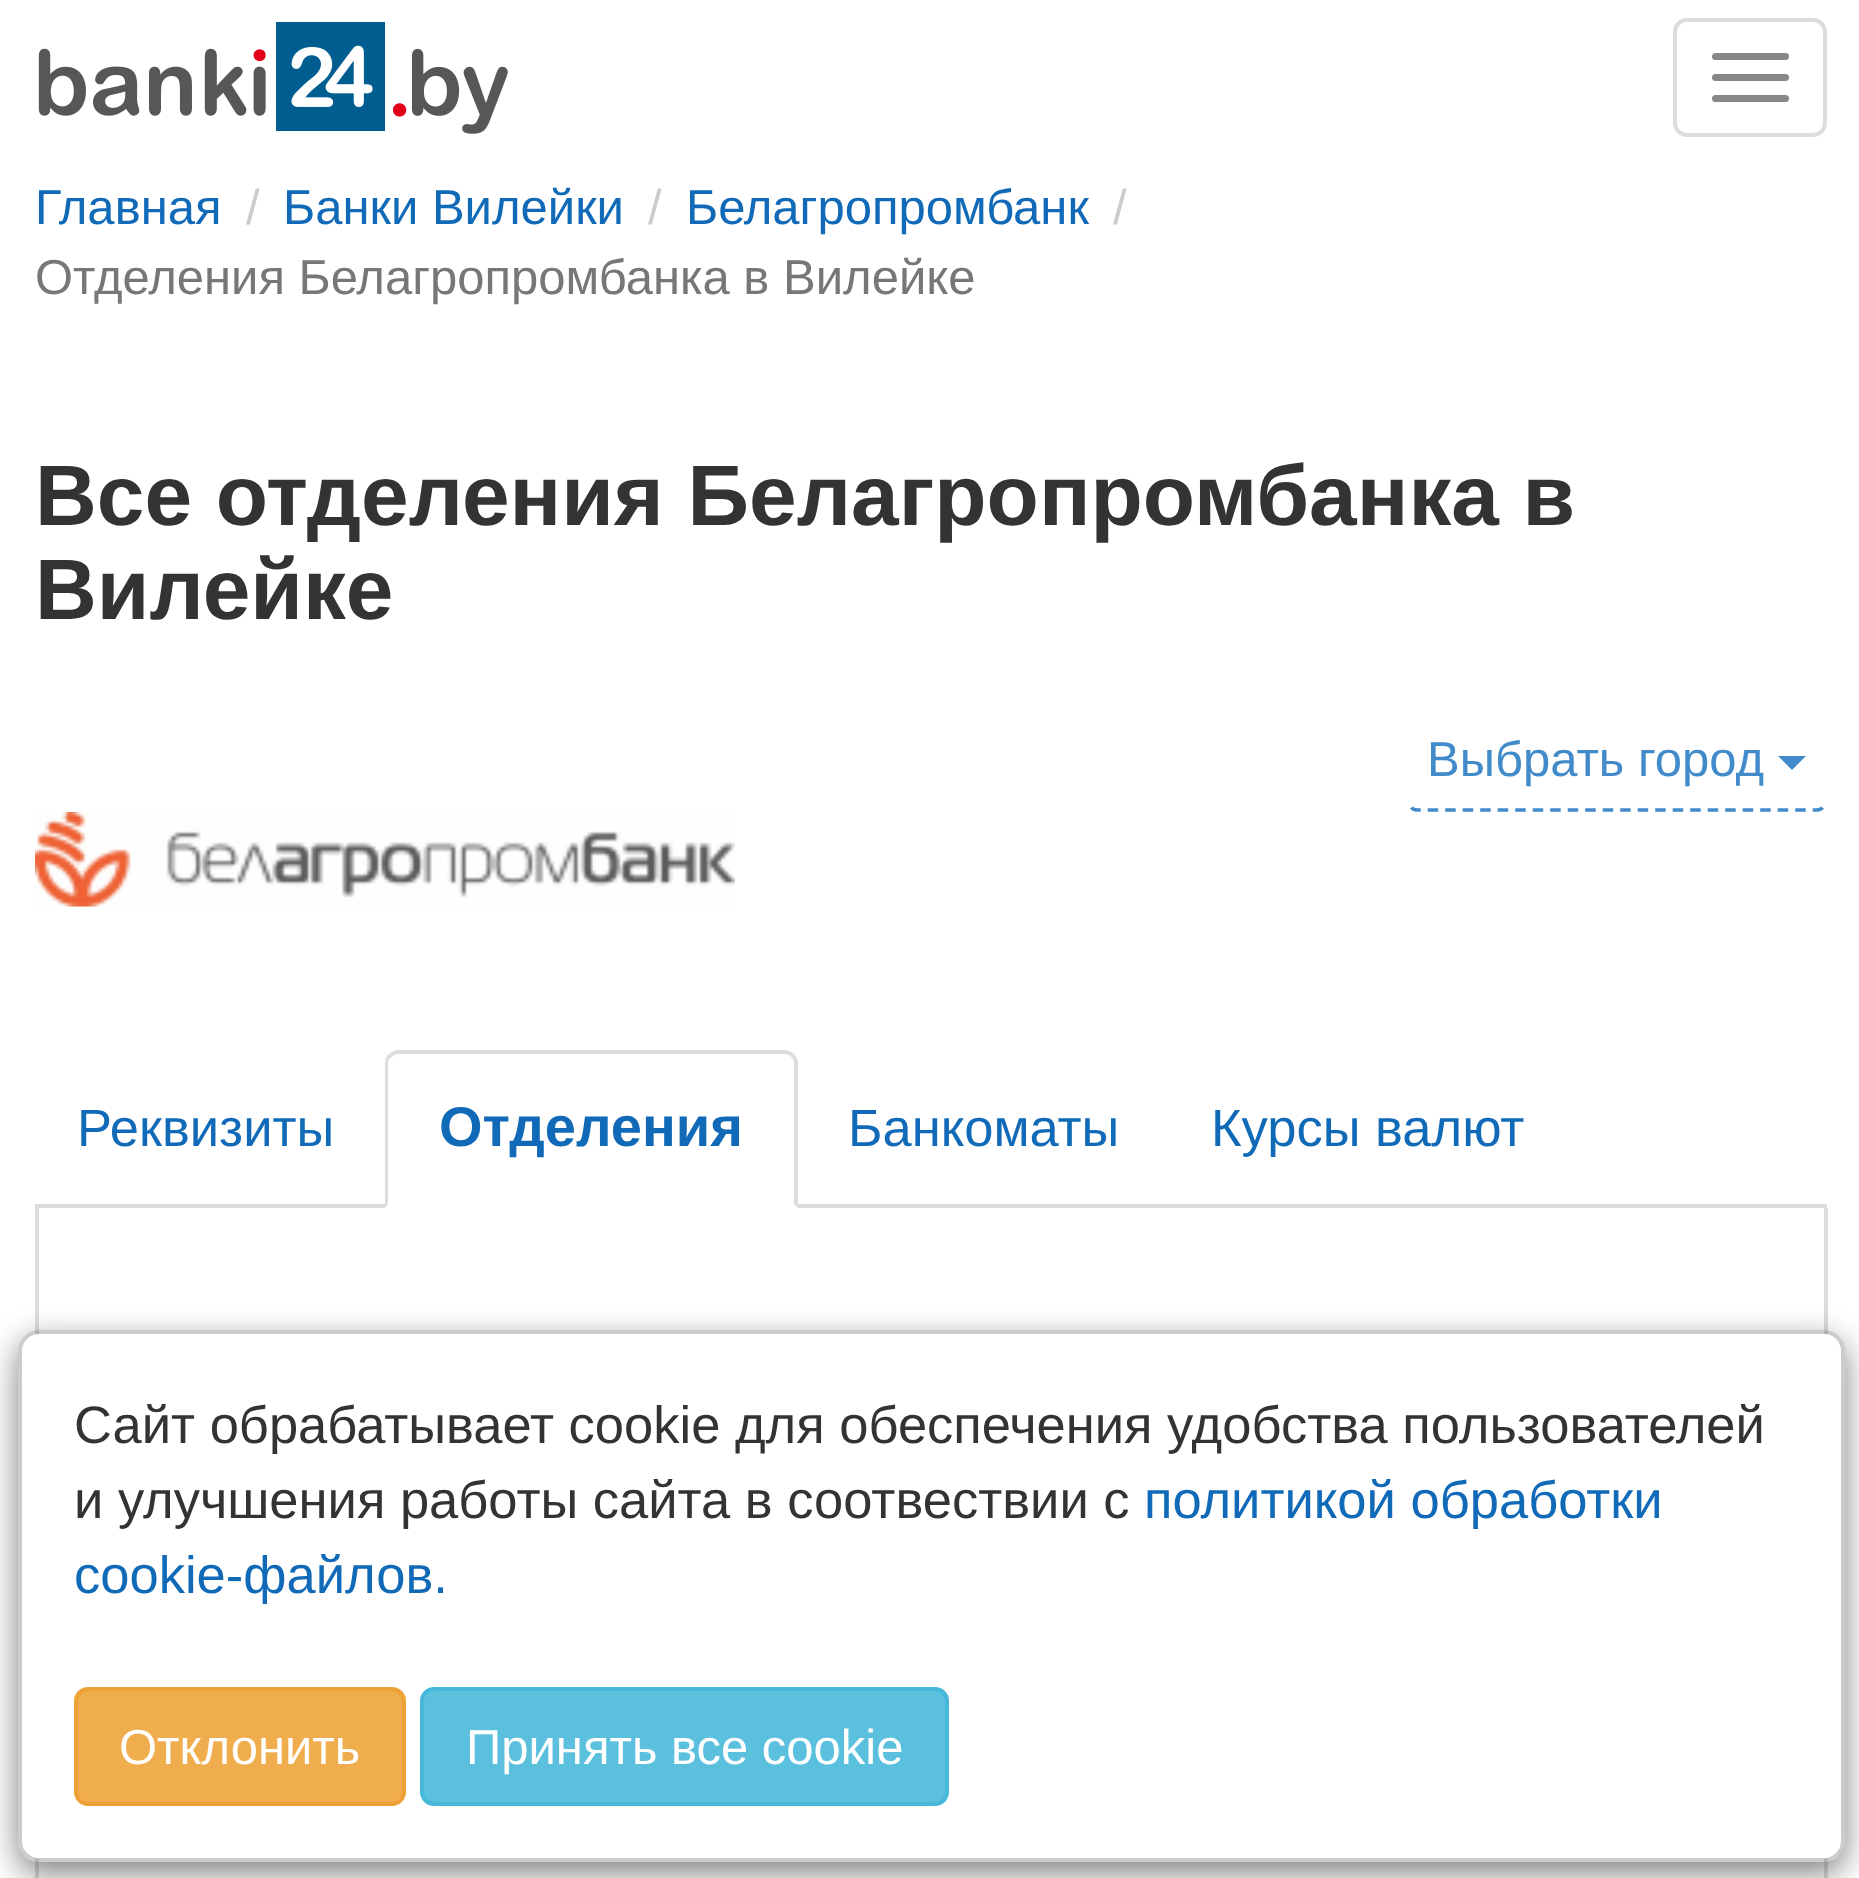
async function draw(canvas) {
	canvas.width = 1859;
	canvas.height = 1878;
	const c = canvas.getContext('2d');
	c.miterLimit = 4;
	c.fontKerning = 'normal';
	async function loadImage(src) {
		const img = new Image();
		img.src = src;
		await img.decode();
		return img;
	}

	c.fillStyle = '#fff';
	c.fillRect(0, 0, 1859, 1878);
	c.drawImage(await loadImage('img1.png'), 38, 22, 470, 112);
	c.beginPath();
	c.roundRect(1675, 20, 150, 115, 12);
	c.strokeStyle = '#ddd';
	c.lineWidth = 4;
	c.stroke();
	c.fillStyle = '#888';
	c.beginPath();
	c.roundRect(1712, 53, 77, 7, 3.5);
	c.fill();
	c.beginPath();
	c.roundRect(1712, 74, 77, 7, 3.5);
	c.fill();
	c.beginPath();
	c.roundRect(1712, 95, 77, 7, 3.5);
	c.fill();
	c.font = '49px Liberation Sans';
	c.fillStyle = '#116ab8';
	c.fillText('Главная', 35, 224);
	c.fillStyle = '#ccc';
	c.fillText('/', 246, 224);
	c.fillStyle = '#116ab8';
	c.fillText('Банки Вилейки', 283, 224);
	c.fillStyle = '#ccc';
	c.fillText('/', 648, 224);
	c.fillStyle = '#116ab8';
	c.fillText('Белагропромбанк', 686, 224);
	c.fillStyle = '#ccc';
	c.fillText('/', 1113, 224);
	c.fillStyle = '#777';
	c.fillText('Отделения Белагропромбанка в Вилейке', 35, 294);
	c.font = 'bold 85.6px Liberation Sans';
	c.fillStyle = '#333';
	c.fillText('Все отделения Белагропромбанка в', 35, 525);
	c.fillText('Вилейке', 35, 619);
	c.beginPath();
	c.moveTo(1822.5, 807.5);
	c.bezierCurveTo(1821, 809.5, 1819, 810, 1816.5, 810);
	c.lineTo(1417.5, 810);
	c.bezierCurveTo(1415, 810, 1413, 809.5, 1411.5, 807.5);
	c.strokeStyle = '#428bca';
	c.lineWidth = 3.5;
	c.setLineDash([10.5, 7]);
	c.stroke();
	c.font = '49px Liberation Sans';
	c.fillStyle = '#428bca';
	c.fillText('Выбрать город', 1427, 776);
	c.beginPath();
	c.moveTo(1778, 756);
	c.lineTo(1806, 756);
	c.lineTo(1792, 770);
	c.closePath();
	c.fill();
	c.drawImage(await loadImage('img2.png'), 35, 812, 700, 95);
	c.fillStyle = '#ddd';
	c.fillRect(35, 1204, 1792, 4);
	c.font = '52.5px Liberation Sans';
	c.fillStyle = '#116ab8';
	c.fillText('Реквизиты', 77, 1146);
	c.fillStyle = '#fff';
	c.beginPath();
	c.roundRect(385, 1050, 413, 158, [14, 14, 0, 0]);
	c.fill();
	c.fillStyle = '#ddd';
	c.beginPath();
	c.moveTo(399, 1050);
	c.bezierCurveTo(395, 1050, 392, 1052, 389, 1054);
	c.lineTo(392, 1057);
	c.bezierCurveTo(393, 1055, 396, 1054, 399, 1054);
	c.lineTo(784, 1054);
	c.bezierCurveTo(787, 1054, 790, 1055, 791, 1057);
	c.lineTo(794, 1054);
	c.bezierCurveTo(792, 1052, 788, 1050, 784, 1050);
	c.closePath();
	c.fill();
	c.beginPath();
	c.moveTo(798, 1208);
	c.lineTo(798, 1064);
	c.bezierCurveTo(798, 1060, 796, 1056, 794, 1054);
	c.lineTo(791, 1057);
	c.bezierCurveTo(793, 1058, 794, 1061, 794, 1064);
	c.lineTo(794, 1204);
	c.closePath();
	c.fill();
	c.beginPath();
	c.moveTo(385, 1208);
	c.lineTo(388, 1204);
	c.lineTo(388, 1064);
	c.bezierCurveTo(388, 1061, 389, 1058, 392, 1057);
	c.lineTo(389, 1054);
	c.bezierCurveTo(386, 1056, 385, 1060, 385, 1064);
	c.closePath();
	c.fill();
	c.font = 'bold 56px Liberation Sans';
	c.fillStyle = '#116ab8';
	c.fillText('Отделения', 439, 1146);
	c.font = '52.5px Liberation Sans';
	c.fillText('Банкоматы', 848, 1146);
	c.fillText('Курсы валют', 1211, 1146);
	c.fillStyle = '#ddd';
	c.fillRect(1824, 1208, 4, 670);
	c.fillRect(35, 1208, 4, 670);
	c.save();
	c.beginPath();
	c.moveTo(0, 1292);
	c.lineTo(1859, 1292);
	c.lineTo(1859, 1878);
	c.lineTo(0, 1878);
	c.closePath();
	c.moveTo(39, 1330);
	c.lineTo(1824, 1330);
	c.bezierCurveTo(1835.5, 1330, 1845, 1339.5, 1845, 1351);
	c.lineTo(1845, 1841);
	c.bezierCurveTo(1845, 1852.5, 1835.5, 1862, 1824, 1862);
	c.lineTo(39, 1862);
	c.bezierCurveTo(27.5, 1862, 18, 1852.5, 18, 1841);
	c.lineTo(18, 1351);
	c.bezierCurveTo(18, 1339.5, 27.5, 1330, 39, 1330);
	c.closePath();
	c.clip('evenodd');
	c.fillStyle = '#00000080';
	c.filter = 'blur(16px)';
	c.beginPath();
	c.roundRect(18, 1341, 1827, 532, 21);
	c.fill();
	c.filter = 'none';
	c.restore();
	c.fillStyle = '#fff';
	c.beginPath();
	c.roundRect(21, 1334, 1820, 525, 18);
	c.fill();
	c.beginPath();
	c.roundRect(20, 1332, 1823, 528, 19);
	c.strokeStyle = '#00000033';
	c.lineWidth = 4;
	c.setLineDash([]);
	c.stroke();
	c.fillStyle = '#333';
	c.fillText('Сайт обрабатывает cookie для обеспечения удобства пользователей', 74, 1443);
	c.fillText('и улучшения работы сайта в соотвествии с', 74, 1518);
	c.fillStyle = '#116ab8';
	c.fillText('политикой обработки', 1144, 1518);
	c.fillText('cookie-файлов.', 74, 1593);
	c.fillStyle = '#f0ad4e';
	c.beginPath();
	c.roundRect(76, 1689, 328, 115, 12);
	c.fill();
	c.strokeStyle = '#eea236';
	c.stroke();
	c.font = '49px Liberation Sans';
	c.fillStyle = '#fff';
	c.fillText('Отклонить', 119, 1764);
	c.fillStyle = '#5bc0de';
	c.beginPath();
	c.roundRect(422, 1689, 525, 115, 12);
	c.fill();
	c.strokeStyle = '#46b8da';
	c.stroke();
	c.fillStyle = '#fff';
	c.fillText('Принять все cookie', 466, 1764);
}

draw(document.querySelector('canvas'));
